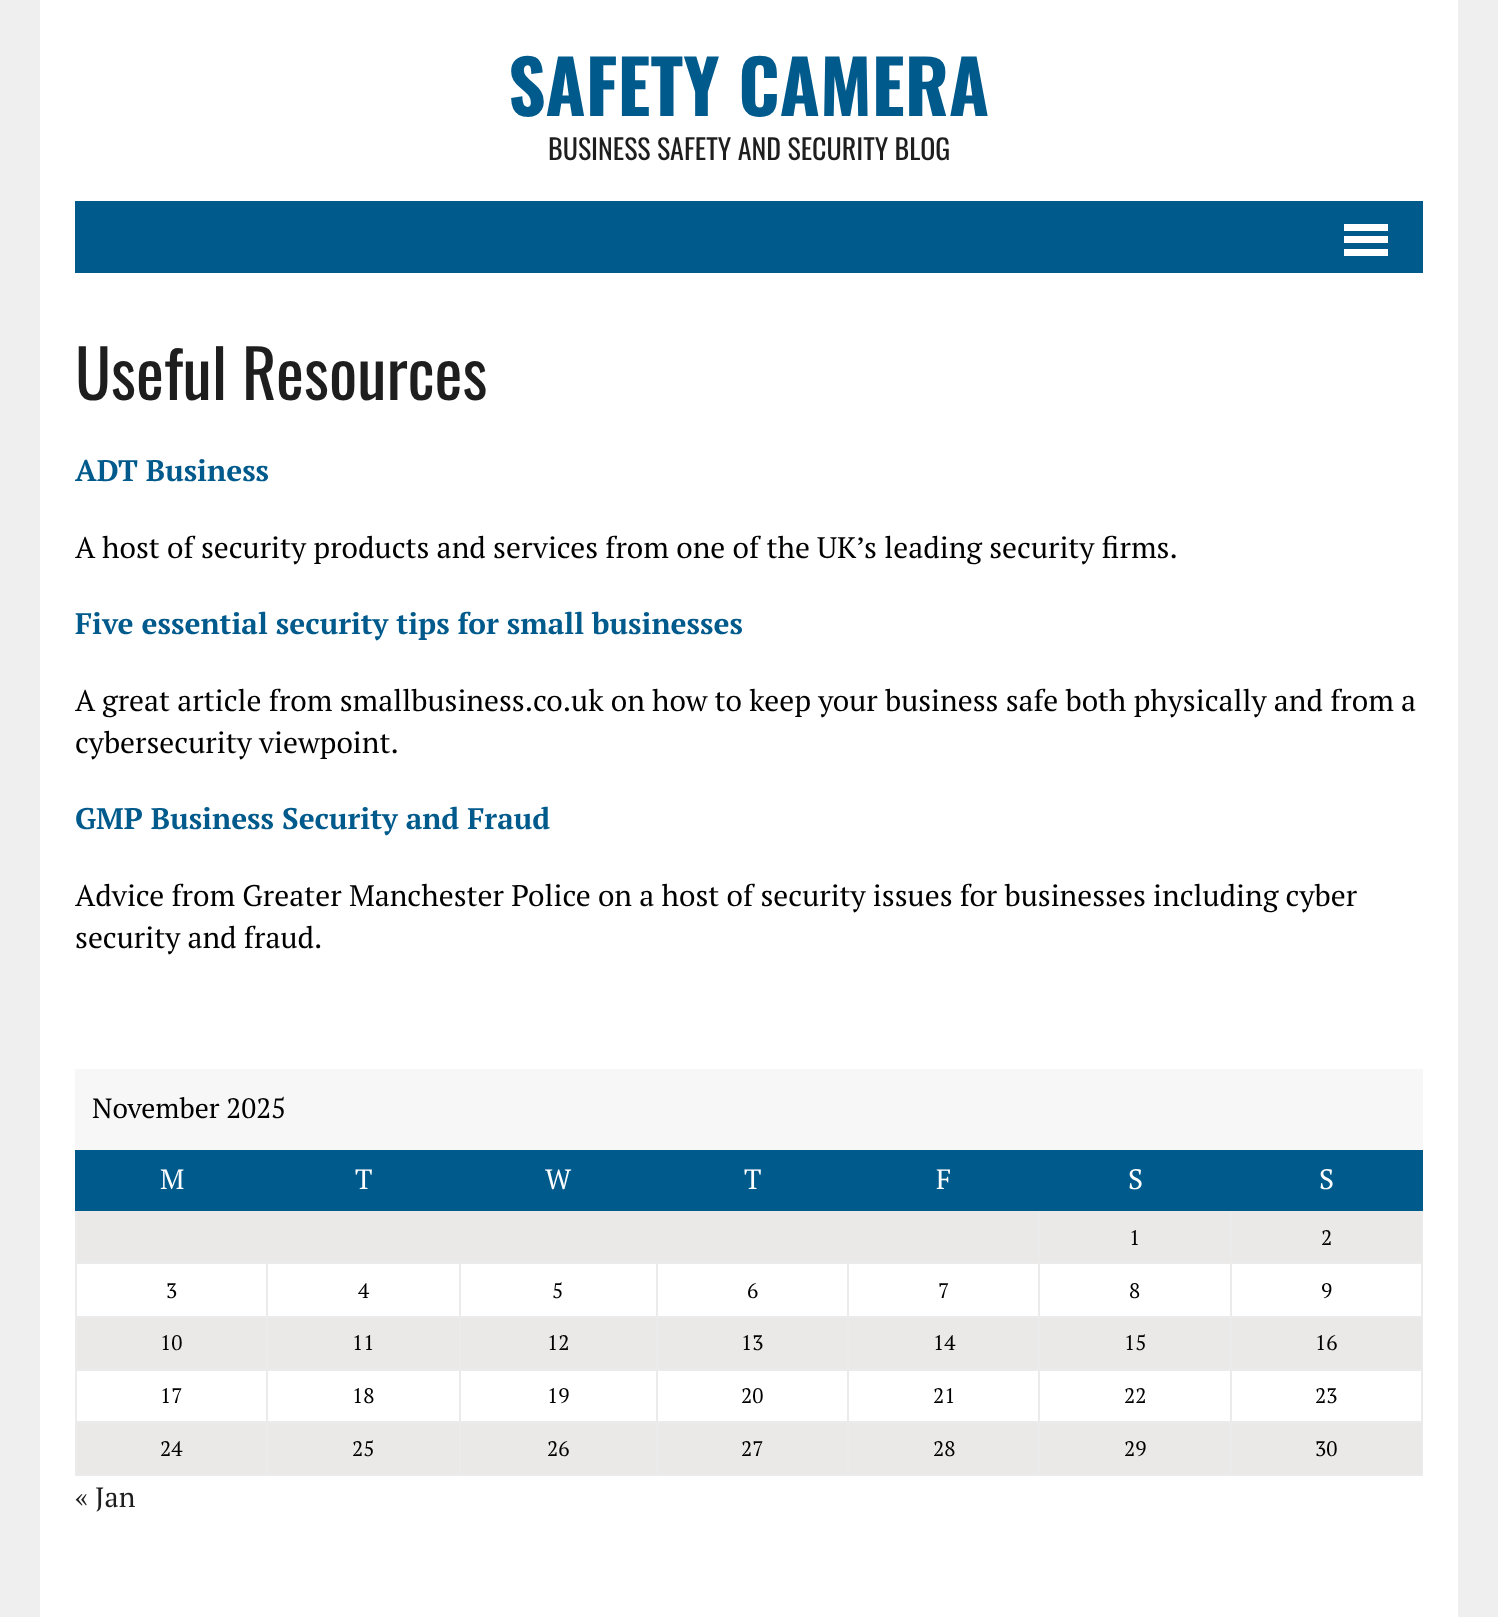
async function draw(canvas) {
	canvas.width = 1498;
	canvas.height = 1617;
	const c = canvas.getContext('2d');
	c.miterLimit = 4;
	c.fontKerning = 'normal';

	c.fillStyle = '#efefef';
	c.fillRect(0, 0, 1498, 1617);
	c.fillStyle = '#fff';
	c.fillRect(40, 0, 1418, 1617);
	c.font = 'bold 73.5px Oswald';
	c.fillStyle = '#005a8c';
	c.fillText('SAFETY CAMERA', 508, 116);
	c.font = '28px Oswald';
	c.fillStyle = '#1f1e1e';
	c.fillText('BUSINESS SAFETY AND SECURITY BLOG', 548, 160);
	for (const [x, y, w, h, color] of [
		[75, 201, 1348, 72, '#005a8c'],
		[1344, 224, 44, 7, '#fff'],
		[1344, 236, 44, 7, '#fff'],
		[1344, 249, 44, 7, '#fff'],
	]) {
		c.fillStyle = color;
		c.fillRect(x, y, w, h);
	}
	c.font = '66.5px Oswald';
	c.fillStyle = '#1f1e1e';
	c.fillText('Useful Resources', 75, 400);
	c.font = 'bold 29.75px PT Serif';
	c.fillStyle = '#005a8c';
	c.fillText('ADT Business', 75, 481);
	c.font = '29.75px PT Serif';
	c.fillStyle = '#000';
	c.fillText('A host of security products and services from one of the UK’s leading security firms.', 75, 558);
	c.font = 'bold 29.75px PT Serif';
	c.fillStyle = '#005a8c';
	c.fillText('Five essential security tips for small businesses', 75, 634);
	c.font = '29.75px PT Serif';
	c.fillStyle = '#000';
	c.fillText('A great article from smallbusiness.co.uk on how to keep your business safe both physically and from a', 75, 711);
	c.fillText('cybersecurity viewpoint.', 75, 753);
	c.font = 'bold 29.75px PT Serif';
	c.fillStyle = '#005a8c';
	c.fillText('GMP Business Security and Fraud', 75, 829);
	c.font = '29.75px PT Serif';
	c.fillStyle = '#000';
	c.fillText('Advice from Greater Manchester Police on a host of security issues for businesses including cyber', 75, 906);
	c.fillText('security and fraud.', 75, 948);
	c.fillStyle = '#f7f7f7';
	c.fillRect(75, 1069, 1348, 81);
	c.font = '28px PT Serif';
	c.fillStyle = '#000';
	c.fillText('November 2025', 92, 1118);
	c.fillStyle = '#005a8c';
	c.fillRect(75, 1150, 1348, 61);
	c.fillStyle = '#fff';
	for (const [text, x, y] of [
		['M', 160, 1189],
		['T', 355, 1189],
		['W', 545, 1189],
		['T', 744, 1189],
		['F', 936, 1189],
		['S', 1128, 1189],
		['S', 1319, 1189],
	]) {
		c.fillText(text, x, y);
	}
	for (const [x, y, w, h, color] of [
		[77, 1211, 1344, 51, '#eae9e8'],
		[77, 1318, 1344, 51, '#eae9e8'],
		[1421, 1211, 2, 264, '#ebebeb'],
		[77, 1423, 1344, 51, '#eae9e8'],
		[1230, 1474, 193, 2, '#ebebeb'],
		[1230, 1421, 2, 54, '#ebebeb'],
		[1230, 1421, 193, 2, '#ebebeb'],
		[1230, 1369, 2, 54, '#ebebeb'],
		[1230, 1369, 193, 2, '#ebebeb'],
		[1230, 1316, 2, 54, '#ebebeb'],
		[1230, 1316, 193, 2, '#ebebeb'],
		[1230, 1262, 2, 56, '#ebebeb'],
		[1230, 1262, 193, 2, '#ebebeb'],
		[1230, 1211, 2, 53, '#ebebeb'],
		[1038, 1474, 194, 2, '#ebebeb'],
		[1038, 1421, 2, 54, '#ebebeb'],
		[1038, 1421, 194, 2, '#ebebeb'],
		[1038, 1369, 2, 54, '#ebebeb'],
		[1038, 1369, 194, 2, '#ebebeb'],
		[1038, 1316, 2, 54, '#ebebeb'],
		[1038, 1316, 194, 2, '#ebebeb'],
		[1038, 1262, 2, 56, '#ebebeb'],
		[1038, 1262, 194, 2, '#ebebeb'],
		[1038, 1211, 2, 53, '#ebebeb'],
		[847, 1474, 193, 2, '#ebebeb'],
		[847, 1421, 2, 54, '#ebebeb'],
		[847, 1421, 193, 2, '#ebebeb'],
		[847, 1369, 2, 54, '#ebebeb'],
		[847, 1369, 193, 2, '#ebebeb'],
		[847, 1316, 2, 54, '#ebebeb'],
		[847, 1316, 193, 2, '#ebebeb'],
		[847, 1262, 2, 56, '#ebebeb'],
		[656, 1474, 193, 2, '#ebebeb'],
		[656, 1421, 2, 54, '#ebebeb'],
		[656, 1421, 193, 2, '#ebebeb'],
		[656, 1369, 2, 54, '#ebebeb'],
		[656, 1369, 193, 2, '#ebebeb'],
		[656, 1316, 2, 54, '#ebebeb'],
		[656, 1316, 193, 2, '#ebebeb'],
		[656, 1262, 2, 56, '#ebebeb'],
		[459, 1474, 199, 2, '#ebebeb'],
		[459, 1421, 2, 54, '#ebebeb'],
		[459, 1421, 199, 2, '#ebebeb'],
		[459, 1369, 2, 54, '#ebebeb'],
		[459, 1369, 199, 2, '#ebebeb'],
		[459, 1316, 2, 54, '#ebebeb'],
		[459, 1316, 199, 2, '#ebebeb'],
		[459, 1262, 2, 56, '#ebebeb'],
		[266, 1474, 194, 2, '#ebebeb'],
		[266, 1421, 2, 54, '#ebebeb'],
		[266, 1421, 194, 2, '#ebebeb'],
		[266, 1369, 2, 54, '#ebebeb'],
		[266, 1369, 194, 2, '#ebebeb'],
		[266, 1316, 2, 54, '#ebebeb'],
		[266, 1316, 194, 2, '#ebebeb'],
		[266, 1262, 2, 56, '#ebebeb'],
		[75, 1474, 193, 2, '#ebebeb'],
		[75, 1421, 2, 54, '#ebebeb'],
		[75, 1421, 193, 2, '#ebebeb'],
		[75, 1369, 2, 54, '#ebebeb'],
		[75, 1369, 193, 2, '#ebebeb'],
		[75, 1316, 2, 54, '#ebebeb'],
		[75, 1316, 193, 2, '#ebebeb'],
		[75, 1262, 2, 56, '#ebebeb'],
		[75, 1262, 965, 2, '#ebebeb'],
		[75, 1211, 2, 53, '#ebebeb'],
	]) {
		c.fillStyle = color;
		c.fillRect(x, y, w, h);
	}
	c.font = '21px PT Serif';
	c.fillStyle = '#000';
	for (const [text, x, y] of [
		['1', 1129, 1245],
		['2', 1321, 1245],
		['3', 166, 1298],
		['4', 358, 1298],
		['5', 552, 1298],
		['6', 747, 1298],
		['7', 938, 1298],
		['8', 1129, 1298],
		['9', 1321, 1298],
		['10', 160, 1350],
		['11', 352, 1350],
		['12', 547, 1350],
		['13', 741, 1350],
		['14', 933, 1350],
		['15', 1124, 1350],
		['16', 1315, 1350],
		['17', 160, 1403],
		['18', 352, 1403],
		['19', 547, 1403],
		['20', 741, 1403],
		['21', 933, 1403],
		['22', 1124, 1403],
		['23', 1315, 1403],
		['24', 160, 1456],
		['25', 352, 1456],
		['26', 547, 1456],
		['27', 741, 1456],
		['28', 933, 1456],
		['29', 1124, 1456],
		['30', 1315, 1456],
	]) {
		c.fillText(text, x, y);
	}
	c.font = '28px PT Serif';
	c.fillStyle = '#1f1e1e';
	c.fillText('« Jan', 75, 1507);
}

draw(document.querySelector('canvas'));
